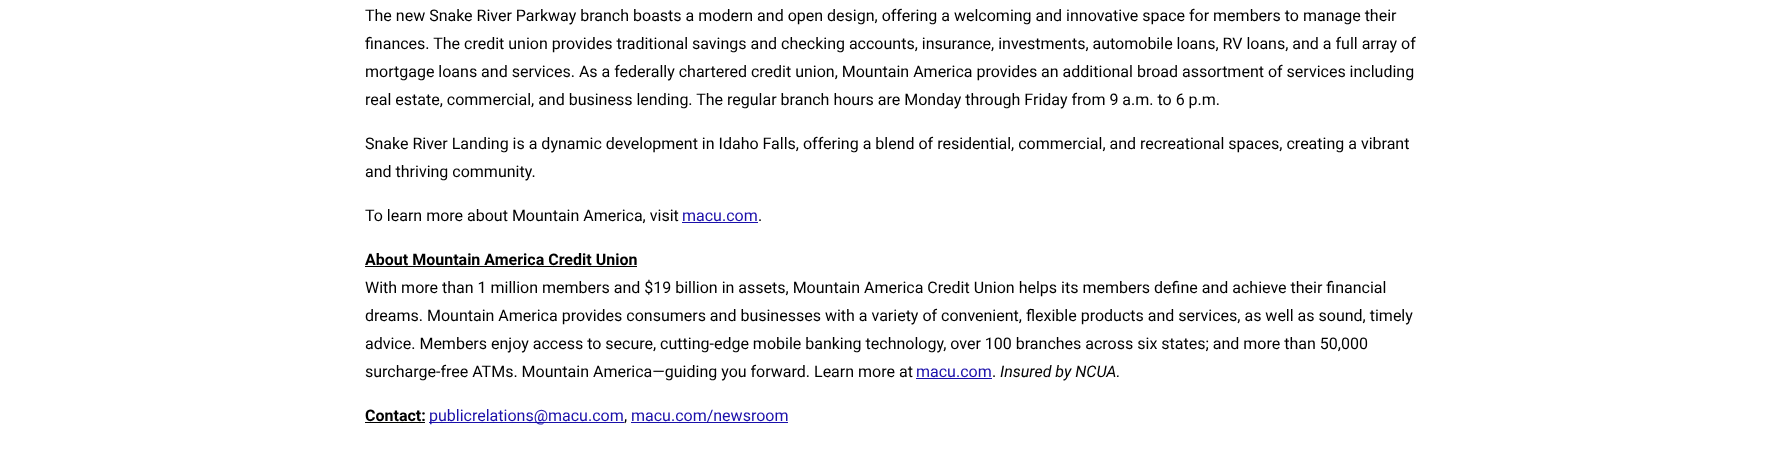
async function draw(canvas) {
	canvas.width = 1789;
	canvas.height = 459;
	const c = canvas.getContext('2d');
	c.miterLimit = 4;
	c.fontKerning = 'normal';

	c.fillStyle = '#fff';
	c.fillRect(0, 0, 1789, 459);
	c.font = '16px Roboto';
	c.fillStyle = '#000';
	for (const [text, x, y] of [
		['The new Snake River Parkway branch boasts a modern and open design, offering a welcoming and innovative space for members to manage their', 365, 21],
		['finances. The credit union provides traditional savings and checking accounts, insurance, investments, automobile loans, RV loans, and a full array of', 365, 49],
		['mortgage loans and services. As a federally chartered credit union, Mountain America provides an additional broad assortment of services including', 365, 77],
		['real estate, commercial, and business lending. The regular branch hours are Monday through Friday from 9 a.m. to 6 p.m.', 365, 105],
		['Snake River Landing is a dynamic development in Idaho Falls, offering a blend of residential, commercial, and recreational spaces, creating a vibrant', 365, 149],
		['and thriving community.', 365, 177],
		['To learn more about Mountain America, visit', 365, 221],
	]) {
		c.fillText(text, x, y);
	}
	c.fillStyle = '#1a0faa';
	c.fillText('macu.com', 682, 221);
	c.fillRect(682, 222, 76, 1);
	c.fillStyle = '#000';
	c.fillText('.', 758, 221);
	c.font = 'bold 16px Roboto';
	c.fillText('About Mountain America Credit Union', 365, 265);
	c.fillRect(365, 266, 272, 1);
	c.font = '16px Roboto';
	for (const [text, x, y] of [
		['With more than 1 million members and $19 billion in assets, Mountain America Credit Union helps its members define and achieve their financial', 365, 293],
		['dreams. Mountain America provides consumers and businesses with a variety of convenient, flexible products and services, as well as sound, timely', 365, 321],
		['advice. Members enjoy access to secure, cutting-edge mobile banking technology, over 100 branches across six states; and more than 50,000', 365, 349],
		['surcharge-free ATMs. Mountain America—guiding you forward. Learn more at', 365, 377],
	]) {
		c.fillText(text, x, y);
	}
	c.fillStyle = '#1a0faa';
	c.fillText('macu.com', 916, 377);
	c.fillRect(916, 378, 76, 1);
	c.fillStyle = '#000';
	c.fillText('.', 992, 377);
	c.font = 'italic 16px Roboto';
	c.fillText('Insured by NCUA.', 1000, 377);
	c.font = 'bold 16px Roboto';
	c.fillText('Contact:', 365, 421);
	c.fillRect(365, 422, 60, 1);
	c.fillStyle = '#1a0faa';
	c.fillRect(429, 422, 195, 1);
	c.font = '16px Roboto';
	c.fillText('publicrelations@macu.com', 429, 421);
	c.fillStyle = '#000';
	c.fillText(',', 624, 421);
	c.fillStyle = '#1a0faa';
	c.fillText('macu.com/newsroom', 631, 421);
	c.fillRect(631, 422, 157, 1);
}

draw(document.querySelector('canvas'));
